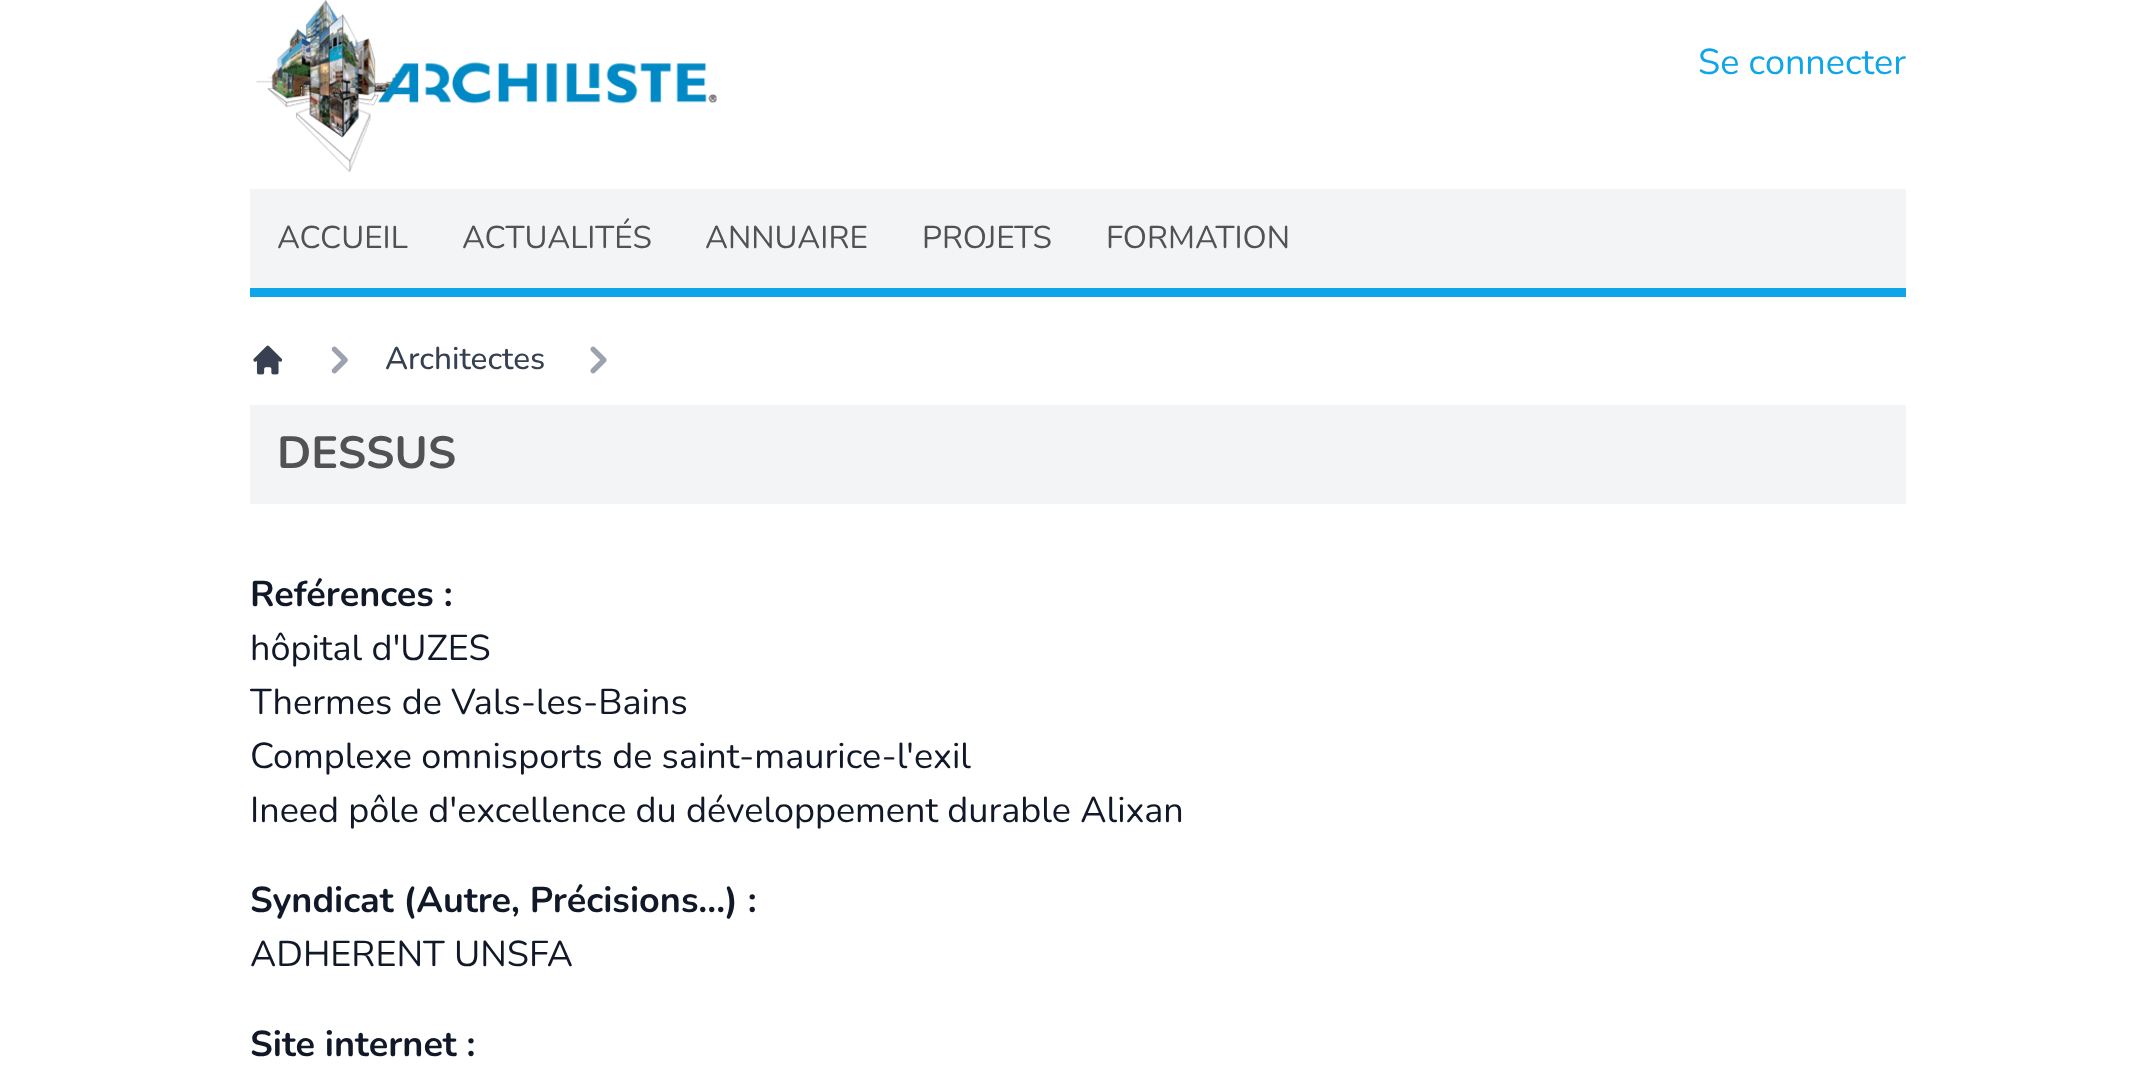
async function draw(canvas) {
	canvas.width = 2154;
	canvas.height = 1070;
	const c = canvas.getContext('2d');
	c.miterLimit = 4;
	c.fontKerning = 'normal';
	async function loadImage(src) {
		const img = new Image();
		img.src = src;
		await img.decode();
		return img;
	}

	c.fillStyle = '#fff';
	c.fillRect(0, 0, 2154, 1070);
	c.drawImage(await loadImage('img1.png'), 256, 0, 461, 172);
	c.font = '36px Nunito';
	c.fillStyle = '#0ea5e9';
	c.fillText('Se connecter', 1698, 74);
	c.fillStyle = '#f3f4f6';
	c.fillRect(250, 189, 1656, 99);
	c.font = '31.5px Nunito';
	c.fillStyle = '#525252';
	for (const [text, x, y] of [
		['ACCUEIL', 277, 248],
		['ACTUALITÉS', 462, 248],
		['ANNUAIRE', 705, 248],
		['PROJETS', 922, 248],
		['FORMATION', 1106, 248],
	]) {
		c.fillText(text, x, y);
	}
	c.fillStyle = '#0ea5e9';
	c.fillRect(250, 288, 1656, 9);
	c.drawImage(await loadImage('img2.png'), 253, 345, 30, 30);
	c.drawImage(await loadImage('img3.png'), 331, 346, 17, 28);
	c.font = '500 31.5px Nunito';
	c.fillStyle = '#374151';
	c.fillText('Architectes', 385, 369);
	c.drawImage(await loadImage('img4.png'), 590, 346, 17, 28);
	c.fillStyle = '#f3f4f6';
	c.fillRect(250, 405, 1656, 99);
	c.font = 'bold 45px Nunito';
	c.fillStyle = '#525252';
	c.fillText('DESSUS', 277, 468);
	c.font = 'bold 36px Nunito';
	c.fillStyle = '#111827';
	c.fillText('Reférences :', 250, 606);
	c.font = '36px Nunito';
	for (const [text, x, y] of [
		['hôpital d\'UZES', 250, 660],
		['Thermes de Vals-les-Bains', 250, 714],
		['Complexe omnisports de saint-maurice-l\'exil', 250, 768],
		['Ineed pôle d\'excellence du développement durable Alixan', 250, 822],
	]) {
		c.fillText(text, x, y);
	}
	c.font = 'bold 36px Nunito';
	c.fillText('Syndicat (Autre, Précisions...) :', 250, 912);
	c.font = '36px Nunito';
	c.fillText('ADHERENT UNSFA', 250, 966);
	c.font = 'bold 36px Nunito';
	c.fillText('Site internet :', 250, 1056);
}

draw(document.querySelector('canvas'));
